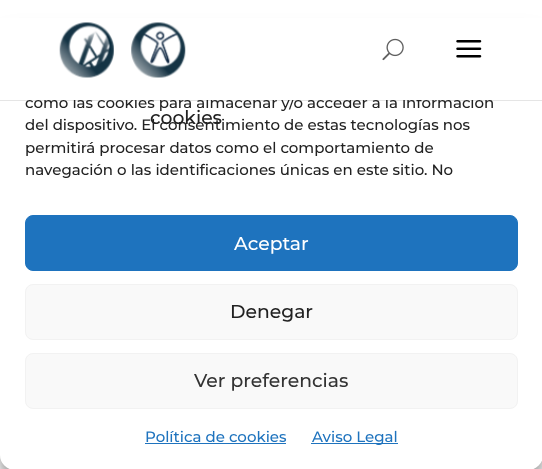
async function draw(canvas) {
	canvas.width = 542;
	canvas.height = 469;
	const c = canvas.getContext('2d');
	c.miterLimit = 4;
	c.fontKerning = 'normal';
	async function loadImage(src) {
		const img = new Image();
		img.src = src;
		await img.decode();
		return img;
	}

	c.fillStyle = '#fff';
	c.fillRect(0, 0, 542, 469);
	c.drawImage(await loadImage('img5.png'), 0, 455, 1, 2);
	c.fillStyle = '#0000003b';
	c.filter = 'blur(4px)';
	c.beginPath();
	c.roundRect(0, 33, 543, 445, 15);
	c.fill();
	c.filter = 'none';
	c.fillStyle = '#00000030';
	c.filter = 'blur(12.5px)';
	c.beginPath();
	c.roundRect(0, 38, 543, 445, 15);
	c.fill();
	c.filter = 'none';
	c.fillStyle = '#fff';
	c.beginPath();
	c.roundRect(0, 25, 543, 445, 15);
	c.fill();
	c.fillStyle = '#0000001a';
	c.beginPath();
	c.moveTo(0, 100);
	c.lineTo(0, 101);
	c.lineTo(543, 101);
	c.lineTo(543, 1);
	c.lineTo(542, 1);
	c.lineTo(542, 100);
	c.closePath();
	c.fill();
	c.font = '500 15px Montserrat';
	c.fillStyle = '#222';
	c.fillText('como las cookies para almacenar y/o acceder a la información', 25, 108);
	c.fillStyle = '#fff';
	c.fillRect(0, 18, 542, 82);
	c.drawImage(await loadImage('img1.png'), 59, 22, 55, 56);
	c.drawImage(await loadImage('img2.png'), 131, 22, 55, 56);
	c.drawImage(await loadImage('img3.png'), 382, 38, 22, 23);
	c.drawImage(await loadImage('img4.png'), 456, 40, 26, 18);
	c.font = '500 18.75px Montserrat';
	c.fillStyle = '#222';
	c.fillText('cookies', 150, 124);
	c.font = '500 15px Montserrat';
	for (const [text, x, y] of [
		['del dispositivo. El consentimiento de estas tecnologías nos', 25, 130],
		['permitirá procesar datos como el comportamiento de', 25, 153],
		['navegación o las identificaciones únicas en este sitio. No', 25, 175],
	]) {
		c.fillText(text, x, y);
	}
	c.fillStyle = '#1e73be';
	c.beginPath();
	c.roundRect(25.5, 215.5, 492, 55, 7.5);
	c.fill();
	c.strokeStyle = '#1e73be';
	c.stroke();
	c.font = '500 18.75px Montserrat';
	c.fillStyle = '#fff';
	c.fillText('Aceptar', 234, 250);
	c.fillStyle = '#f9f9f9';
	c.beginPath();
	c.roundRect(25.5, 284.5, 492, 55, 7.5);
	c.fill();
	c.strokeStyle = '#f2f2f2';
	c.stroke();
	c.fillStyle = '#222';
	c.fillText('Denegar', 230, 318);
	c.fillStyle = '#f9f9f9';
	c.beginPath();
	c.roundRect(25.5, 353.5, 492, 55, 7.5);
	c.fill();
	c.stroke();
	c.fillStyle = '#333';
	c.fillText('Ver preferencias', 194, 387);
	c.font = '500 15px Montserrat';
	c.fillStyle = '#1e73be';
	c.fillText('Política de cookies', 145, 442);
	c.fillRect(145, 443, 141, 1);
	c.fillRect(311, 443, 87, 1);
	c.fillText('Aviso Legal', 312, 442);
}

draw(document.querySelector('canvas'));
